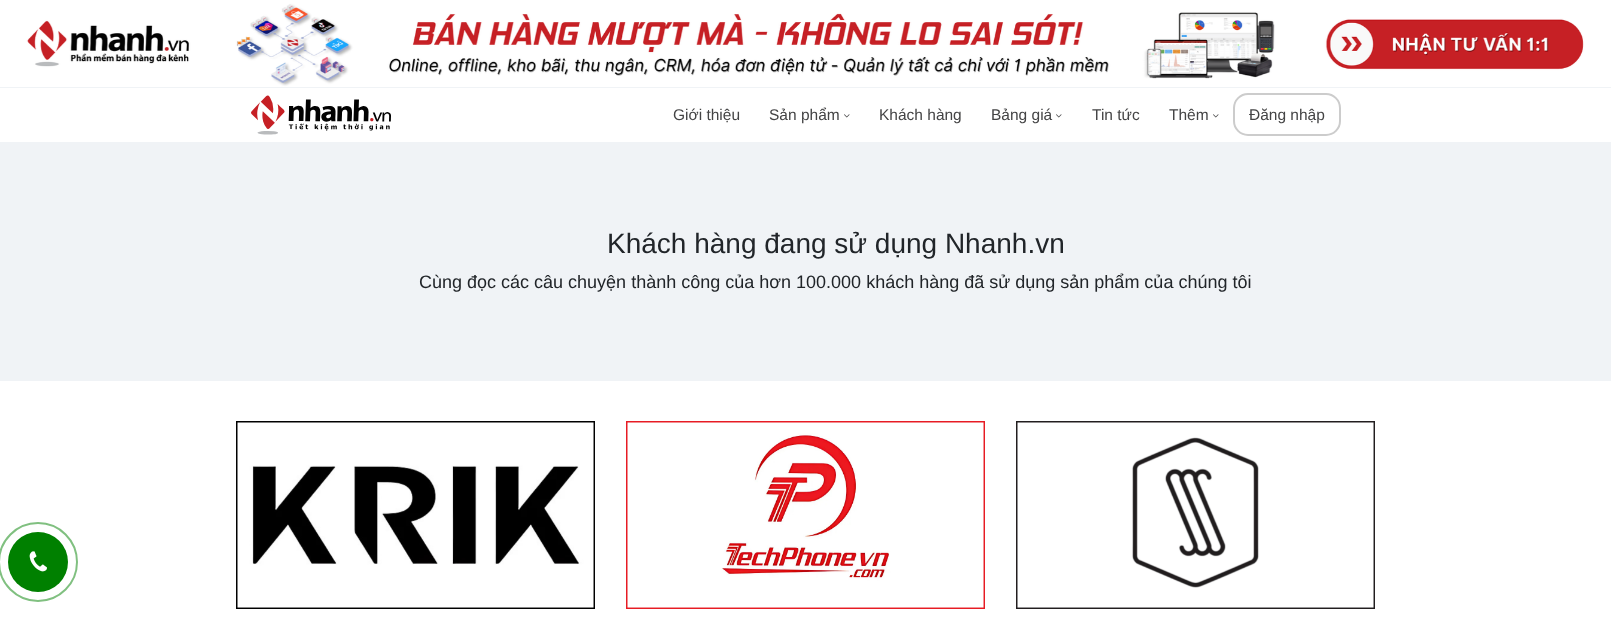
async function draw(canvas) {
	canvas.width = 1611;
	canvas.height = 620;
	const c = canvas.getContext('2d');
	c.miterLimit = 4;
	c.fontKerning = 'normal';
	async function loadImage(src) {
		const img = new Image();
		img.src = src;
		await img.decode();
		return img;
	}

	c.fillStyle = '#fff';
	c.fillRect(0, 0, 1611, 620);
	c.fillStyle = '#f0f3f6';
	c.fillRect(0, 0, 1611, 88);
	c.drawImage(await loadImage('img1.png'), 0, 0, 1611, 87);
	c.drawImage(await loadImage('img2.png'), 251, 95, 140, 40);
	c.font = '15.5px Liberation Sans';
	c.fillStyle = '#444445';
	c.fillText('Giới thiệu', 673, 120);
	c.fillText('Sản phẩm', 769, 120);
	c.drawImage(await loadImage('img3.png'), 844, 114, 6, 4);
	c.fillText('Khách hàng', 879, 120);
	c.fillText('Bảng giá', 991, 120);
	c.drawImage(await loadImage('img3.png'), 1056, 114, 6, 4);
	c.fillText('Tin tức', 1092, 120);
	c.fillText('Thêm', 1169, 120);
	c.drawImage(await loadImage('img3.png'), 1213, 114, 6, 4);
	c.beginPath();
	c.roundRect(1234, 94, 106, 41, 14);
	c.strokeStyle = '#ccc';
	c.lineWidth = 2;
	c.stroke();
	c.fillText('Đăng nhập', 1249, 120);
	c.fillStyle = '#f0f3f6';
	c.fillRect(0, 142, 1611, 239);
	c.font = '28px Liberation Sans';
	c.fillStyle = '#212529';
	c.fillText('Khách hàng đang sử dụng Nhanh.vn', 607, 253);
	c.font = '18px Liberation Sans';
	c.fillText('Cùng đọc các câu chuyện thành công của hơn 100.000 khách hàng đã sử dụng sản phẩm của chúng tôi', 419, 288);
	c.drawImage(await loadImage('img4.png'), 236, 421, 359, 188);
	c.drawImage(await loadImage('img5.png'), 626, 421, 359, 188);
	c.drawImage(await loadImage('img6.png'), 1016, 421, 359, 188);
	c.beginPath();
	c.arc(38, 562, 39, 0, 2 * Math.PI);
	c.strokeStyle = '#80c080';
	c.stroke();
	c.fillStyle = '#008000';
	c.beginPath();
	c.arc(38, 562, 30, 0, 2 * Math.PI);
	c.fill();
	c.drawImage(await loadImage('img7.png'), 29, 551, 18, 21);
}

draw(document.querySelector('canvas'));
